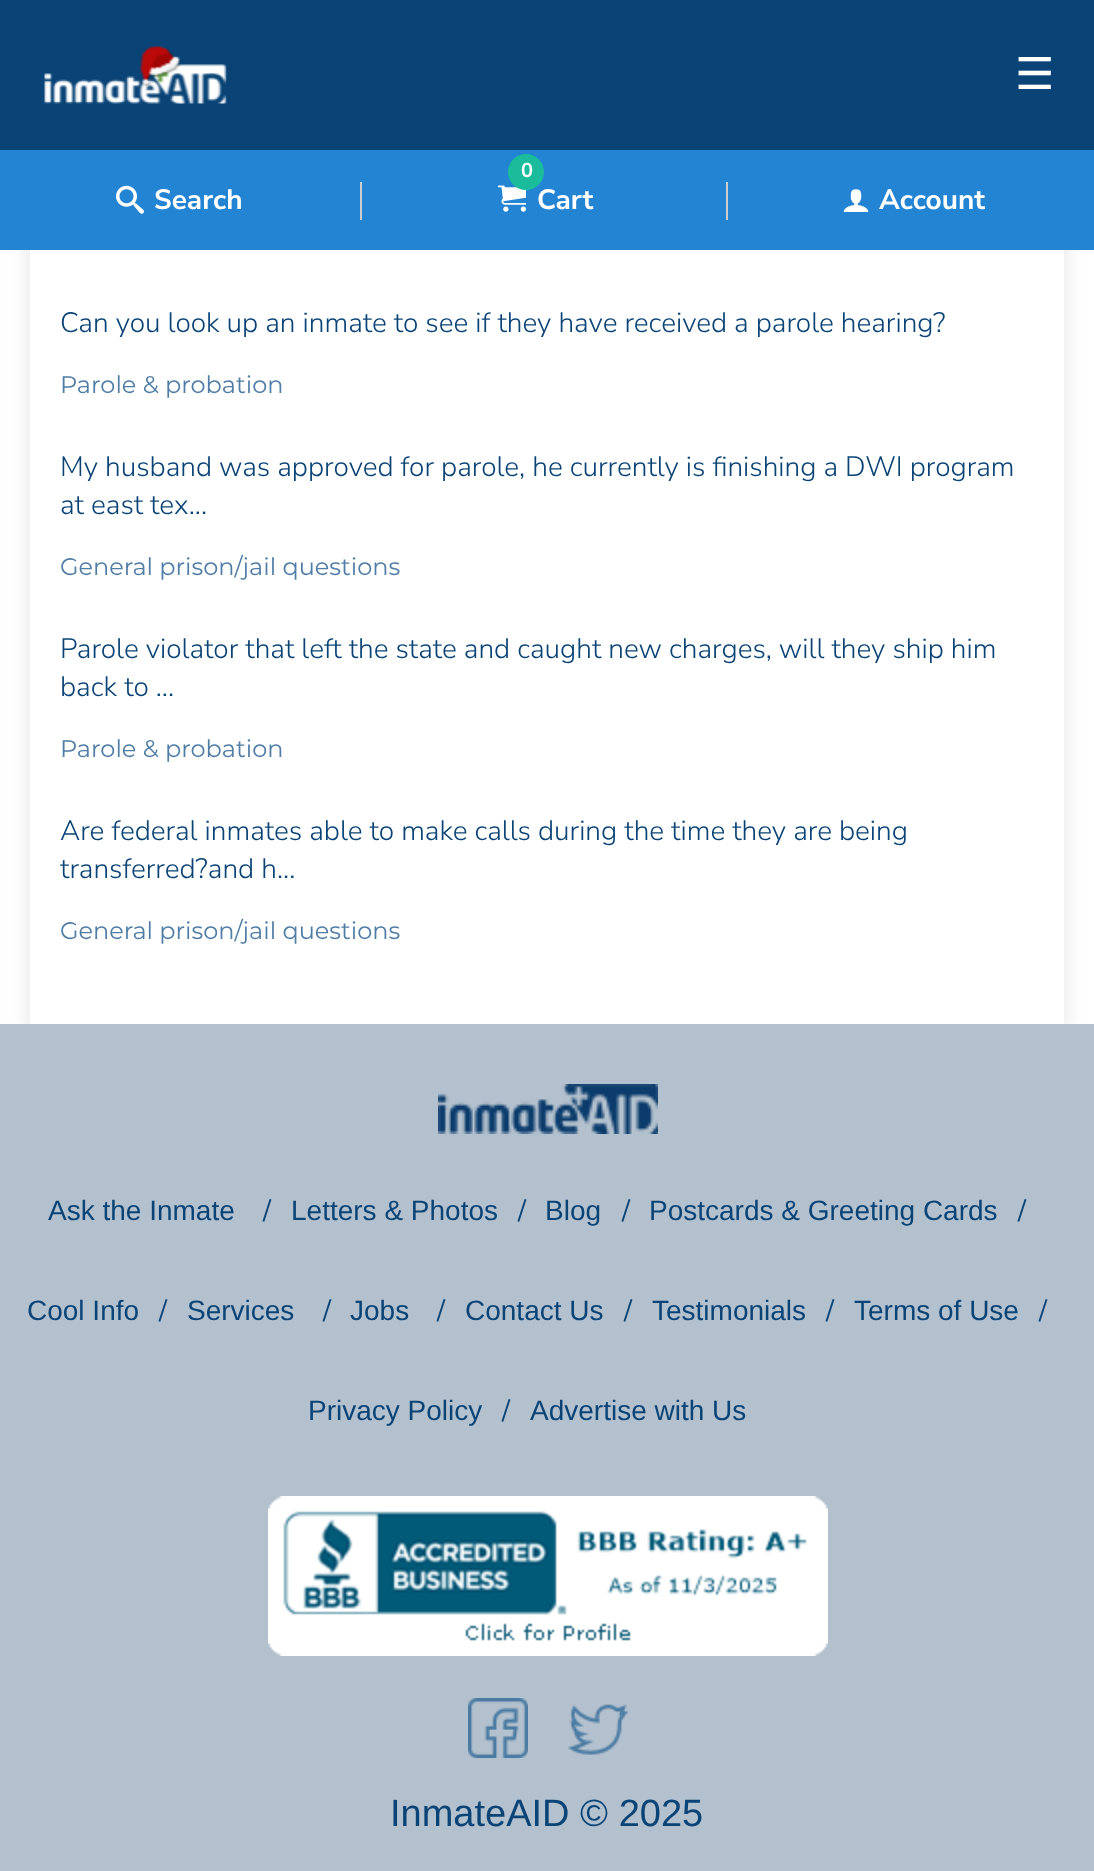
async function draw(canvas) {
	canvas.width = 1094;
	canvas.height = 1871;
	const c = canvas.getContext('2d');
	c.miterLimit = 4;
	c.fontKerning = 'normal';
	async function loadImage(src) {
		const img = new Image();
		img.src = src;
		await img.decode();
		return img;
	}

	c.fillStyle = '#fff';
	c.fillRect(0, 0, 1094, 1871);
	c.save();
	c.beginPath();
	c.moveTo(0, 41);
	c.lineTo(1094, 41);
	c.lineTo(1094, 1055);
	c.lineTo(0, 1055);
	c.closePath();
	c.moveTo(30, 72);
	c.lineTo(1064, 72);
	c.lineTo(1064, 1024);
	c.lineTo(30, 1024);
	c.closePath();
	c.clip('evenodd');
	c.fillStyle = '#eee';
	c.filter = 'blur(8px)';
	c.beginPath();
	c.rect(24, 66, 1046, 964);
	c.fill();
	c.filter = 'none';
	c.restore();
	c.fillStyle = '#0a4477';
	c.fillRect(0, 0, 1094, 150);
	c.drawImage(await loadImage('img1.png'), 44, 46, 183, 58);
	c.font = '44px DejaVu Sans';
	c.fillStyle = '#fff';
	c.fillText('☰', 1015, 89);
	c.fillStyle = '#2284d2';
	c.fillRect(0, 150, 1094, 100);
	c.fillStyle = '#ccc';
	c.fillRect(360, 182, 2, 38);
	c.drawImage(await loadImage('img2.png'), 116, 185, 28, 29);
	c.font = 'bold 28px Nunito Sans';
	c.fillStyle = '#fff';
	c.fillText('Search', 154, 209);
	c.fillStyle = '#ccc';
	c.fillRect(726, 182, 2, 38);
	c.drawImage(await loadImage('img3.png'), 498, 185, 28, 27);
	c.fillStyle = '#fff';
	c.fillText('Cart', 537, 209);
	c.fillStyle = '#1abc9c';
	c.beginPath();
	c.arc(526, 172, 18, 0, 2 * Math.PI);
	c.fill();
	c.font = 'bold 20px Nunito Sans';
	c.fillStyle = '#fff';
	c.fillText('0', 521, 177);
	c.drawImage(await loadImage('img4.png'), 843, 189, 26, 23);
	c.font = 'bold 28px Nunito Sans';
	c.fillText('Account', 879, 209);
	c.font = '300 28px Nunito Sans';
	c.fillStyle = '#0a4376';
	c.fillText('Can you look up an inmate to see if they have received a parole hearing?', 60, 332);
	c.font = '24px Montserrat';
	c.fillStyle = '#507da6';
	c.fillText('Parole & probation', 60, 393);
	c.font = '300 28px Nunito Sans';
	c.fillStyle = '#0a4376';
	c.fillText('My husband was approved for parole, he currently is finishing a DWI program', 60, 476);
	c.fillText('at east tex...', 60, 514);
	c.font = '24px Montserrat';
	c.fillStyle = '#507da6';
	c.fillText('General prison/jail questions', 60, 575);
	c.font = '300 28px Nunito Sans';
	c.fillStyle = '#0a4376';
	c.fillText('Parole violator that left the state and caught new charges, will they ship him', 60, 658);
	c.fillText('back to ...', 60, 696);
	c.font = '24px Montserrat';
	c.fillStyle = '#507da6';
	c.fillText('Parole & probation', 60, 757);
	c.font = '300 28px Nunito Sans';
	c.fillStyle = '#0a4376';
	c.fillText('Are federal inmates able to make calls during the time they are being', 60, 840);
	c.fillText('transferred?and h...', 60, 878);
	c.font = '24px Montserrat';
	c.fillStyle = '#507da6';
	c.fillText('General prison/jail questions', 60, 939);
	c.fillStyle = '#b3c0cd';
	c.fillRect(0, 1024, 1094, 847);
	c.drawImage(await loadImage('img5.png'), 438, 1084, 220, 50);
	c.font = '28px Liberation Sans';
	c.fillStyle = '#0a4376';
	c.fillText('Ask the Inmate', 48, 1220);
	c.font = '28px Nunito Sans';
	c.fillText('/', 263, 1220);
	c.font = '28px Liberation Sans';
	c.fillText('Letters & Photos', 291, 1220);
	c.font = '28px Nunito Sans';
	c.fillText('/', 518, 1220);
	c.font = '28px Liberation Sans';
	c.fillText('Blog', 545, 1220);
	c.font = '28px Nunito Sans';
	c.fillText('/', 622, 1220);
	c.font = '28px Liberation Sans';
	c.fillText('Postcards & Greeting Cards', 649, 1220);
	c.font = '28px Nunito Sans';
	c.fillText('/', 1018, 1220);
	c.font = '28px Liberation Sans';
	c.fillText('Cool Info', 27, 1320);
	c.font = '28px Nunito Sans';
	c.fillText('/', 159, 1320);
	c.font = '28px Liberation Sans';
	c.fillText('Services', 187, 1320);
	c.font = '28px Nunito Sans';
	c.fillText('/', 323, 1320);
	c.font = '28px Liberation Sans';
	c.fillText('Jobs', 350, 1320);
	c.font = '28px Nunito Sans';
	c.fillText('/', 437, 1320);
	c.font = '28px Liberation Sans';
	c.fillText('Contact Us', 465, 1320);
	c.font = '28px Nunito Sans';
	c.fillText('/', 624, 1320);
	c.font = '28px Liberation Sans';
	c.fillText('Testimonials', 652, 1320);
	c.font = '28px Nunito Sans';
	c.fillText('/', 826, 1320);
	c.font = '28px Liberation Sans';
	c.fillText('Terms of Use', 854, 1320);
	c.font = '28px Nunito Sans';
	c.fillText('/', 1039, 1320);
	c.font = '28px Liberation Sans';
	c.fillText('Privacy Policy', 308, 1420);
	c.font = '28px Nunito Sans';
	c.fillText('/', 502, 1420);
	c.font = '28px Liberation Sans';
	c.fillText('Advertise with Us', 530, 1420);
	c.drawImage(await loadImage('img6.png'), 268, 1496, 560, 160);
	c.drawImage(await loadImage('img7.png'), 468, 1698, 60, 60);
	c.drawImage(await loadImage('img8.png'), 568, 1704, 60, 51);
	c.font = '38px Liberation Sans';
	c.fillText('InmateAID © 2025', 390, 1826);
}

draw(document.querySelector('canvas'));
